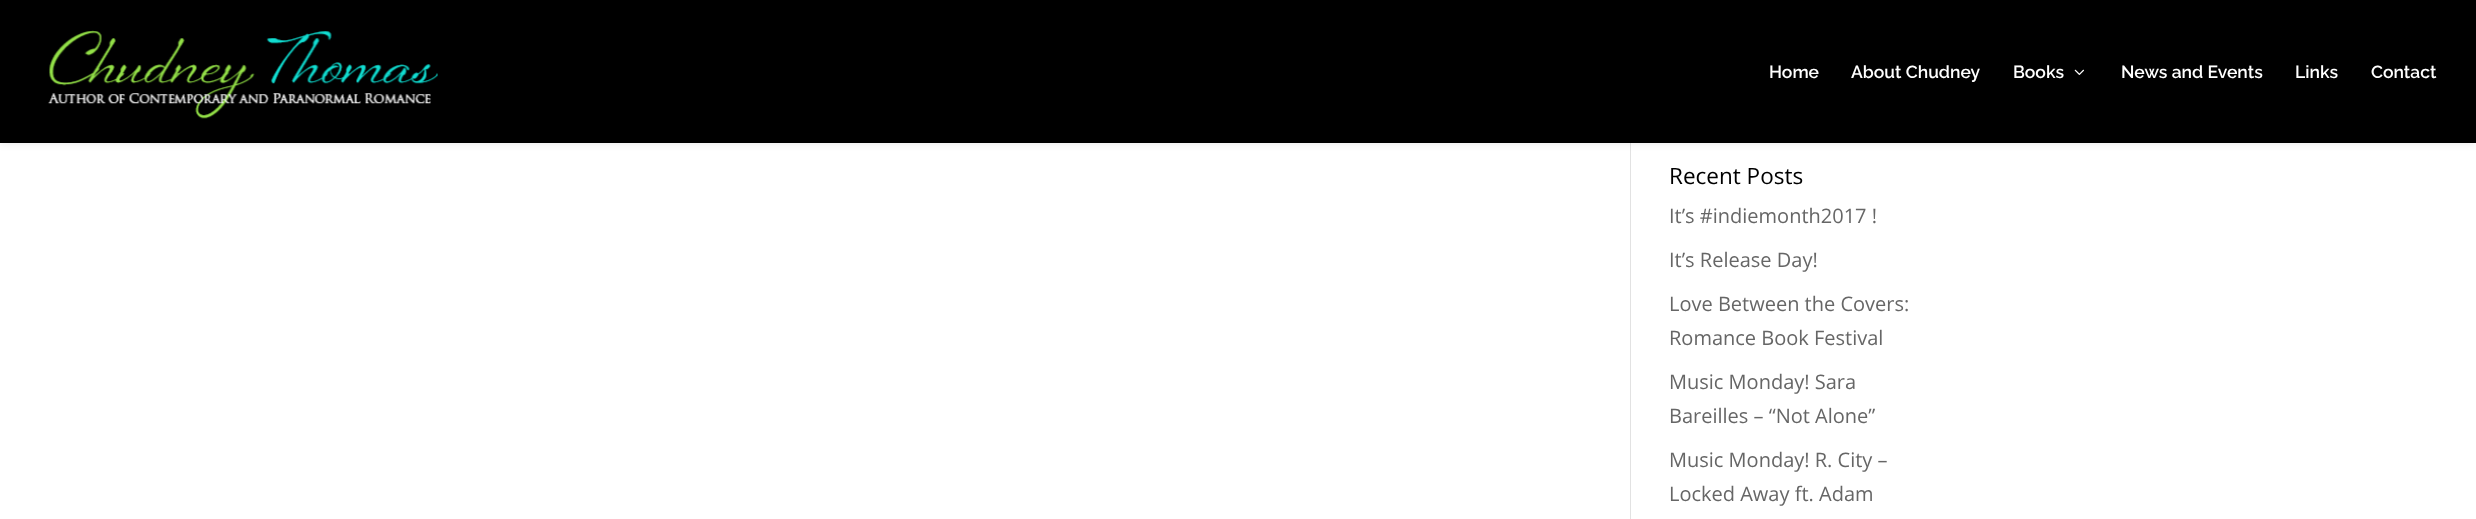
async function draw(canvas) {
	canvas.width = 2476;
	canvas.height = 519;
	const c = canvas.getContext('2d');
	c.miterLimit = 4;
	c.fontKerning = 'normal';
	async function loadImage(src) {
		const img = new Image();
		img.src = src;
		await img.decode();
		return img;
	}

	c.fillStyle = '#fff';
	c.fillRect(0, 0, 2476, 519);
	c.fillStyle = '#e2e2e2';
	c.fillRect(1630, 143, 1, 376);
	c.fillStyle = '#0000001a';
	c.filter = 'blur(4.5px)';
	c.beginPath();
	c.rect(0, 0, 2476, 143);
	c.fill();
	c.filter = 'none';
	c.fillStyle = '#000';
	c.fillRect(0, 0, 2476, 143);
	c.drawImage(await loadImage('img1.png'), 48, 30, 390, 89);
	c.font = '600 17.5px Raleway';
	c.fillStyle = '#fff';
	for (const [text, x, y] of [
		['Home', 1769, 78],
		['About Chudney', 1851, 78],
		['Books', 2013, 78],
	]) {
		c.fillText(text, x, y);
	}
	c.drawImage(await loadImage('img2.png'), 2074, 69, 10, 6);
	for (const [text, x, y] of [
		['News and Events', 2121, 78],
		['Links', 2295, 78],
		['Contact', 2371, 78],
	]) {
		c.fillText(text, x, y);
	}
	c.font = '22.5px Open Sans';
	c.fillStyle = '#000';
	c.fillText('Recent Posts', 1669, 184);
	c.font = '20px Open Sans';
	c.fillStyle = '#666';
	for (const [text, x, y] of [
		['It’s #indiemonth2017 !', 1669, 223],
		['It’s Release Day!', 1669, 267],
		['Love Between the Covers:', 1669, 311],
		['Romance Book Festival', 1669, 345],
		['Music Monday! Sara', 1669, 389],
		['Bareilles – “Not Alone”', 1669, 423],
		['Music Monday! R. City –', 1669, 467],
		['Locked Away ft. Adam', 1669, 501],
	]) {
		c.fillText(text, x, y);
	}
}

draw(document.querySelector('canvas'));
